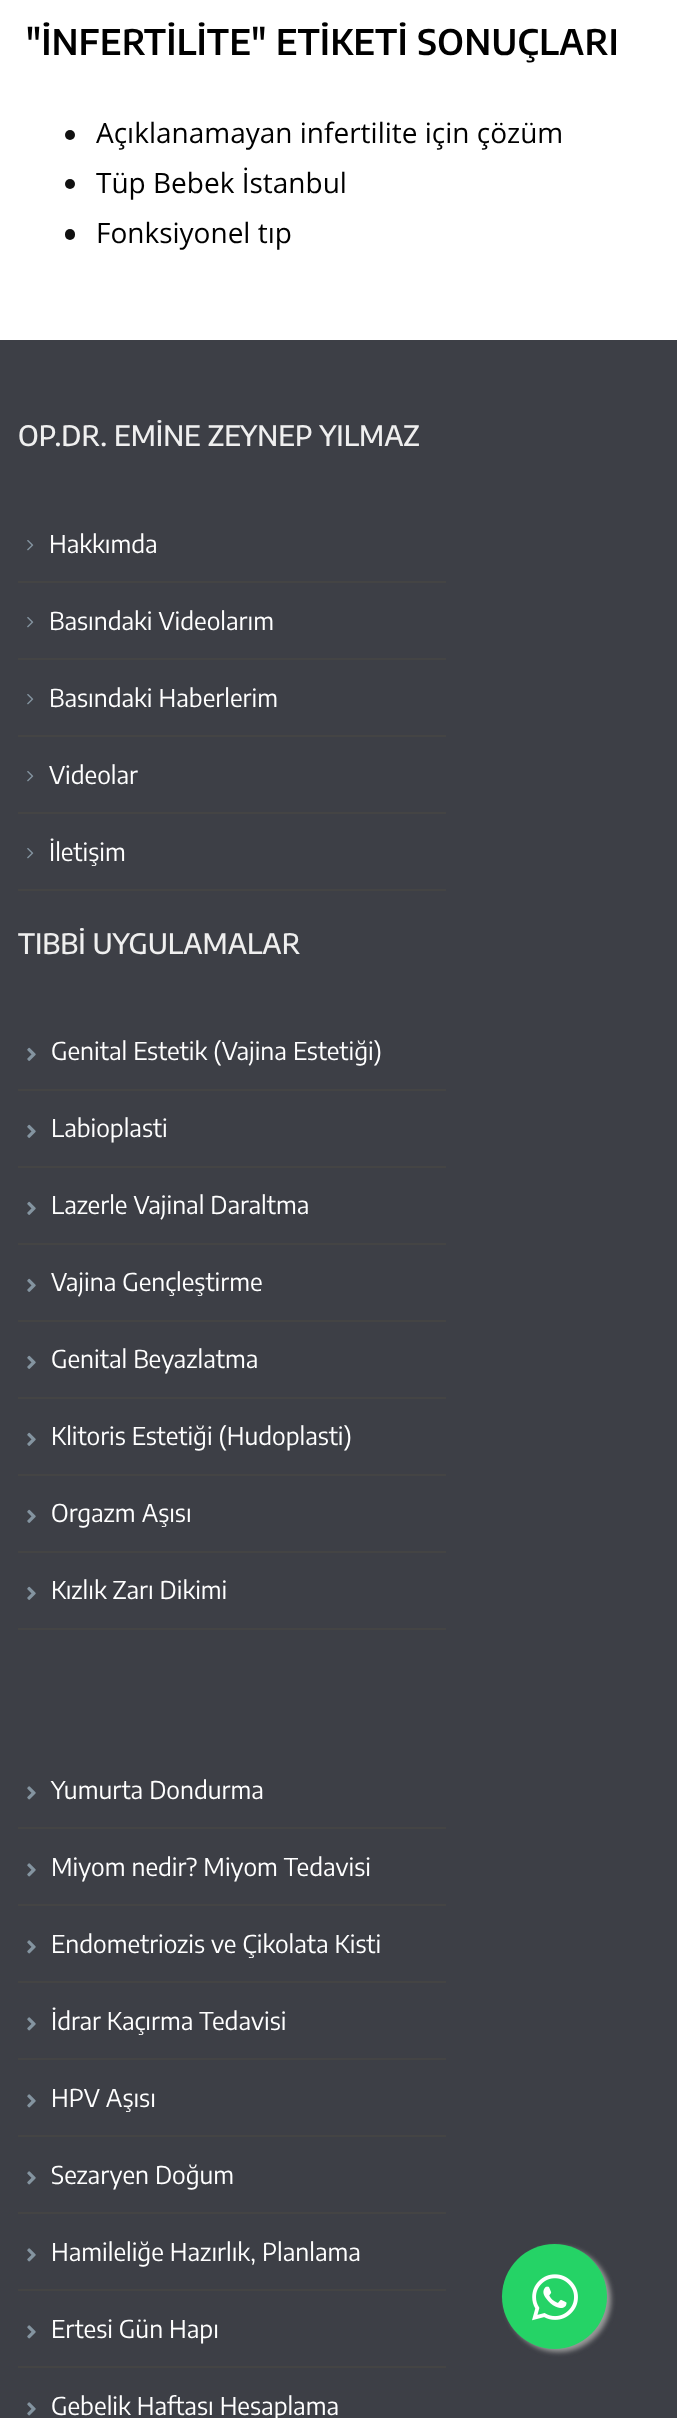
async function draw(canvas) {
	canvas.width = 677;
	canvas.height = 2418;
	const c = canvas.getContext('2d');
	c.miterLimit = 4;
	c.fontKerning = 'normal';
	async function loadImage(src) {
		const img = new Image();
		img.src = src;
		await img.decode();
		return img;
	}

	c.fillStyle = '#fff';
	c.fillRect(0, 0, 677, 2418);
	c.letterSpacing = '0.5px';
	c.font = '600 35px Encode Sans Condensed';
	c.fillStyle = '#000';
	c.fillText('"İNFERTİLİTE" ETİKETİ SONUÇLARI', 26, 55);
	c.fillStyle = '#111';
	c.beginPath();
	c.arc(70, 135, 5, 0, 2 * Math.PI);
	c.fill();
	c.letterSpacing = '0px';
	c.font = '28px Open Sans';
	c.fillStyle = '#000';
	c.fillText('Açıklanamayan infertilite için çözüm', 96, 143);
	c.fillStyle = '#111';
	c.beginPath();
	c.arc(70, 184, 5, 0, 2 * Math.PI);
	c.fill();
	c.fillStyle = '#000';
	c.fillText('Tüp Bebek İstanbul', 96, 193);
	c.fillStyle = '#111';
	c.beginPath();
	c.roundRect(65, 229, 10, 11, 5);
	c.fill();
	c.fillStyle = '#000';
	c.fillText('Fonksiyonel tıp', 96, 243);
	c.fillStyle = '#3d3f46';
	c.fillRect(0, 340, 677, 2078);
	c.font = '500 28px Encode Sans Condensed';
	c.fillStyle = '#efefef';
	c.fillText('OP.DR. EMİNE ZEYNEP YILMAZ', 18, 446);
	c.fillStyle = '#444';
	c.fillRect(18, 581, 428, 2);
	c.drawImage(await loadImage('img1.png'), 27, 540, 7, 11);
	c.font = '24.5px Encode Sans Condensed';
	c.fillStyle = '#fff';
	c.fillText('Hakkımda', 49, 553);
	c.fillStyle = '#444';
	c.fillRect(18, 658, 428, 2);
	c.drawImage(await loadImage('img1.png'), 27, 617, 7, 11);
	c.fillStyle = '#fff';
	c.fillText('Basındaki Videolarım', 49, 630);
	c.fillStyle = '#444';
	c.fillRect(18, 735, 428, 2);
	c.drawImage(await loadImage('img1.png'), 27, 694, 7, 11);
	c.fillStyle = '#fff';
	c.fillText('Basındaki Haberlerim', 49, 707);
	c.fillStyle = '#444';
	c.fillRect(18, 812, 428, 2);
	c.drawImage(await loadImage('img1.png'), 27, 771, 7, 11);
	c.fillStyle = '#fff';
	c.fillText('Videolar', 49, 784);
	c.fillStyle = '#444';
	c.fillRect(18, 889, 428, 2);
	c.drawImage(await loadImage('img1.png'), 27, 848, 7, 11);
	c.fillStyle = '#fff';
	c.fillText('İletişim', 49, 861);
	c.font = '500 28px Encode Sans Condensed';
	c.fillStyle = '#efefef';
	c.fillText('TIBBİ UYGULAMALAR', 18, 954);
	c.fillStyle = '#444';
	c.fillRect(18, 1089, 428, 2);
	c.drawImage(await loadImage('img2.png'), 27, 1047, 9, 14);
	c.font = '24.5px Encode Sans Condensed';
	c.fillStyle = '#fff';
	c.fillText('Genital Estetik (Vajina Estetiği)', 51, 1060);
	c.fillStyle = '#444';
	c.fillRect(18, 1166, 428, 2);
	c.drawImage(await loadImage('img2.png'), 27, 1124, 9, 14);
	c.fillStyle = '#fff';
	c.fillText('Labioplasti', 51, 1137);
	c.fillStyle = '#444';
	c.fillRect(18, 1243, 428, 2);
	c.drawImage(await loadImage('img2.png'), 27, 1201, 9, 14);
	c.fillStyle = '#fff';
	c.fillText('Lazerle Vajinal Daraltma', 51, 1214);
	c.fillStyle = '#444';
	c.fillRect(18, 1320, 428, 2);
	c.drawImage(await loadImage('img2.png'), 27, 1278, 9, 14);
	c.fillStyle = '#fff';
	c.fillText('Vajina Gençleştirme', 51, 1291);
	c.fillStyle = '#444';
	c.fillRect(18, 1397, 428, 2);
	c.drawImage(await loadImage('img2.png'), 27, 1355, 9, 14);
	c.fillStyle = '#fff';
	c.fillText('Genital Beyazlatma', 51, 1368);
	c.fillStyle = '#444';
	c.fillRect(18, 1474, 428, 2);
	c.drawImage(await loadImage('img2.png'), 27, 1432, 9, 14);
	c.fillStyle = '#fff';
	c.fillText('Klitoris Estetiği (Hudoplasti)', 51, 1445);
	c.fillStyle = '#444';
	c.fillRect(18, 1551, 428, 2);
	c.drawImage(await loadImage('img2.png'), 27, 1509, 9, 14);
	c.fillStyle = '#fff';
	c.fillText('Orgazm Aşısı', 51, 1522);
	c.fillStyle = '#444';
	c.fillRect(18, 1628, 428, 2);
	c.drawImage(await loadImage('img2.png'), 27, 1586, 9, 14);
	c.fillStyle = '#fff';
	c.fillText('Kızlık Zarı Dikimi', 51, 1599);
	c.fillStyle = '#444';
	c.fillRect(18, 1827, 428, 2);
	c.drawImage(await loadImage('img3.png'), 27, 1786, 9, 14);
	c.fillStyle = '#fff';
	c.fillText('Yumurta Dondurma', 51, 1799);
	c.fillStyle = '#444';
	c.fillRect(18, 1904, 428, 2);
	c.drawImage(await loadImage('img3.png'), 27, 1863, 9, 14);
	c.fillStyle = '#fff';
	c.fillText('Miyom nedir? Miyom Tedavisi', 51, 1876);
	c.fillStyle = '#444';
	c.fillRect(18, 1981, 428, 2);
	c.drawImage(await loadImage('img3.png'), 27, 1940, 9, 14);
	c.fillStyle = '#fff';
	c.fillText('Endometriozis ve Çikolata Kisti', 51, 1953);
	c.fillStyle = '#444';
	c.fillRect(18, 2058, 428, 2);
	c.drawImage(await loadImage('img3.png'), 27, 2017, 9, 14);
	c.fillStyle = '#fff';
	c.fillText('İdrar Kaçırma Tedavisi', 51, 2030);
	c.fillStyle = '#444';
	c.fillRect(18, 2135, 428, 2);
	c.drawImage(await loadImage('img3.png'), 27, 2094, 9, 14);
	c.fillStyle = '#fff';
	c.fillText('HPV Aşısı', 51, 2107);
	c.fillStyle = '#444';
	c.fillRect(18, 2212, 428, 2);
	c.drawImage(await loadImage('img3.png'), 27, 2171, 9, 14);
	c.fillStyle = '#fff';
	c.fillText('Sezaryen Doğum', 51, 2184);
	c.fillStyle = '#444';
	c.fillRect(18, 2289, 428, 2);
	c.drawImage(await loadImage('img3.png'), 27, 2248, 9, 14);
	c.fillStyle = '#fff';
	c.fillText('Hamileliğe Hazırlık, Planlama', 51, 2261);
	c.fillStyle = '#444';
	c.fillRect(18, 2366, 428, 2);
	c.drawImage(await loadImage('img3.png'), 27, 2325, 9, 14);
	c.fillStyle = '#fff';
	c.fillText('Ertesi Gün Hapı', 51, 2338);
	c.drawImage(await loadImage('img3.png'), 27, 2402, 9, 14);
	c.fillText('Gebelik Haftası Hesaplama', 51, 2415);
	c.fillStyle = '#999';
	c.filter = 'blur(2.5px)';
	c.beginPath();
	c.roundRect(506, 2247, 105, 105, 52.5);
	c.fill();
	c.filter = 'none';
	c.fillStyle = '#25d366';
	c.beginPath();
	c.arc(554.5, 2296.5, 52.5, 0, 2 * Math.PI);
	c.fill();
	c.drawImage(await loadImage('img4.png'), 532, 2274, 46, 47);
}

draw(document.querySelector('canvas'));
